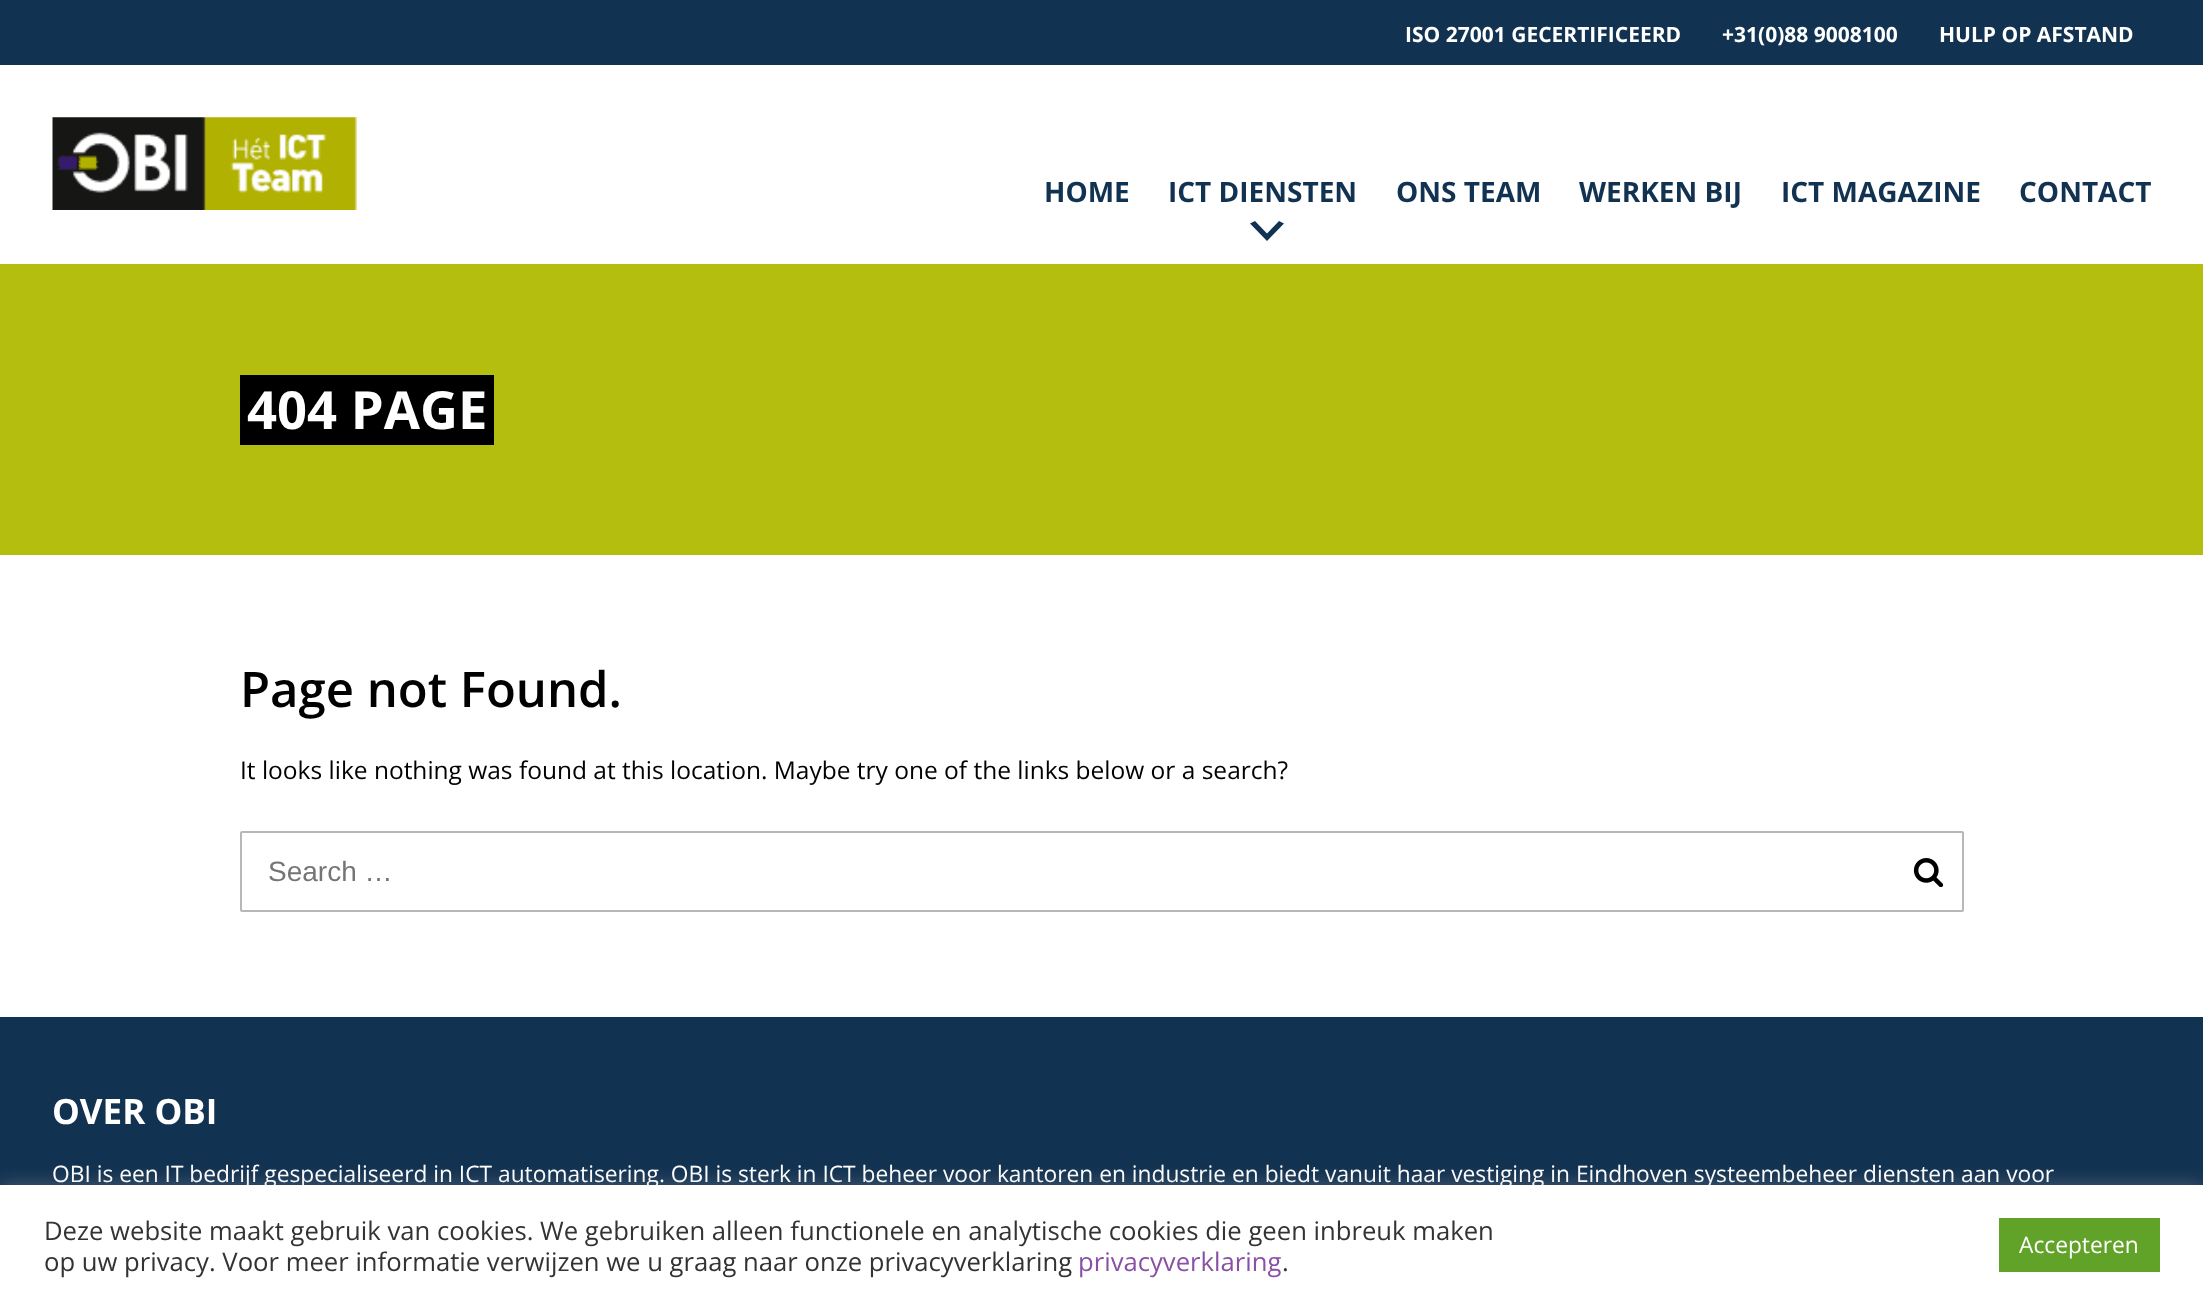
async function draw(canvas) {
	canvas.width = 2203;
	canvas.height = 1304;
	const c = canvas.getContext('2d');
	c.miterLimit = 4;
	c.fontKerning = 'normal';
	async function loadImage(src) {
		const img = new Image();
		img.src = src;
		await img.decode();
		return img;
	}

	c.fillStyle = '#fff';
	c.fillRect(0, 0, 2203, 1304);
	c.fillStyle = '#123251';
	c.fillRect(0, 0, 2203, 65);
	c.font = 'bold 21px Open Sans';
	c.fillStyle = '#fff';
	for (const [text, x, y] of [
		['ISO 27001 GECERTIFICEERD', 1405, 42],
		['+31(0)88 9008100', 1722, 42],
		['HULP OP AFSTAND', 1939, 42],
	]) {
		c.fillText(text, x, y);
	}
	c.drawImage(await loadImage('img1.png'), 52, 117, 305, 93);
	c.font = 'bold 28px Open Sans';
	c.fillStyle = '#123251';
	c.fillText('HOME', 1044, 202);
	c.fillText('ICT DIENSTEN', 1168, 202);
	c.beginPath();
	c.moveTo(1255, 221);
	c.lineTo(1267, 233.5);
	c.lineTo(1279, 221);
	c.lineTo(1284, 223.5);
	c.lineTo(1267, 241);
	c.lineTo(1250, 223.5);
	c.closePath();
	c.fill();
	for (const [text, x, y] of [
		['ONS TEAM', 1396, 202],
		['WERKEN BIJ', 1579, 202],
		['ICT MAGAZINE', 1781, 202],
		['CONTACT', 2019, 202],
	]) {
		c.fillText(text, x, y);
	}
	c.fillStyle = '#b4be0f';
	c.fillRect(0, 264, 2203, 291);
	c.fillStyle = '#000';
	c.fillRect(240, 375, 254, 70);
	c.font = 'bold 52.5px Open Sans';
	c.fillStyle = '#fff';
	c.fillText('404 PAGE', 247, 429);
	c.font = '600 49px Open Sans';
	c.fillStyle = '#000';
	c.fillText('Page not Found.', 240, 707);
	c.font = '24.5px Open Sans';
	c.fillText('It looks like nothing was found at this location. Maybe try one of the links below or a search?', 240, 779);
	c.beginPath();
	c.roundRect(241, 832, 1722, 79, 1);
	c.strokeStyle = '#b6b7b8';
	c.lineWidth = 2;
	c.stroke();
	c.font = '28px Liberation Sans';
	c.fillStyle = '#757575';
	c.fillText('Search …', 268, 881);
	c.drawImage(await loadImage('img2.png'), 1913, 858, 31, 29);
	c.fillStyle = '#123251';
	c.fillRect(0, 1017, 2203, 168);
	c.font = 'bold 35px Open Sans';
	c.fillStyle = '#fff';
	c.fillText('OVER OBI', 52, 1124);
	c.font = '22.75px Open Sans';
	c.fillText('OBI is een IT bedrijf gespecialiseerd in ICT automatisering. OBI is sterk in ICT beheer voor kantoren en industrie en biedt vanuit haar vestiging in Eindhoven systeembeheer diensten aan voor', 52, 1182);
	c.fillStyle = '#acabab4d';
	c.filter = 'blur(9px)';
	c.beginPath();
	c.rect(0, 1183, 2203, 121);
	c.fill();
	c.filter = 'none';
	c.fillStyle = '#fff';
	c.fillRect(0, 1185, 2203, 119);
	c.font = '25.67px Open Sans';
	c.fillStyle = '#333';
	c.fillText('Deze website maakt gebruik van cookies. We gebruiken alleen functionele en analytische cookies die geen inbreuk maken', 44, 1240);
	c.fillText('op uw privacy. Voor meer informatie verwijzen we u graag naar onze privacyverklaring', 44, 1271);
	c.fillStyle = '#8950a5';
	c.fillText('privacyverklaring', 1078, 1271);
	c.fillStyle = '#333';
	c.fillText('.', 1282, 1271);
	c.fillStyle = '#61a229';
	c.fillRect(1999, 1218, 161, 54);
	c.font = '22.75px Open Sans';
	c.fillStyle = '#fff';
	c.fillText('Accepteren', 2019, 1253);
}

draw(document.querySelector('canvas'));
